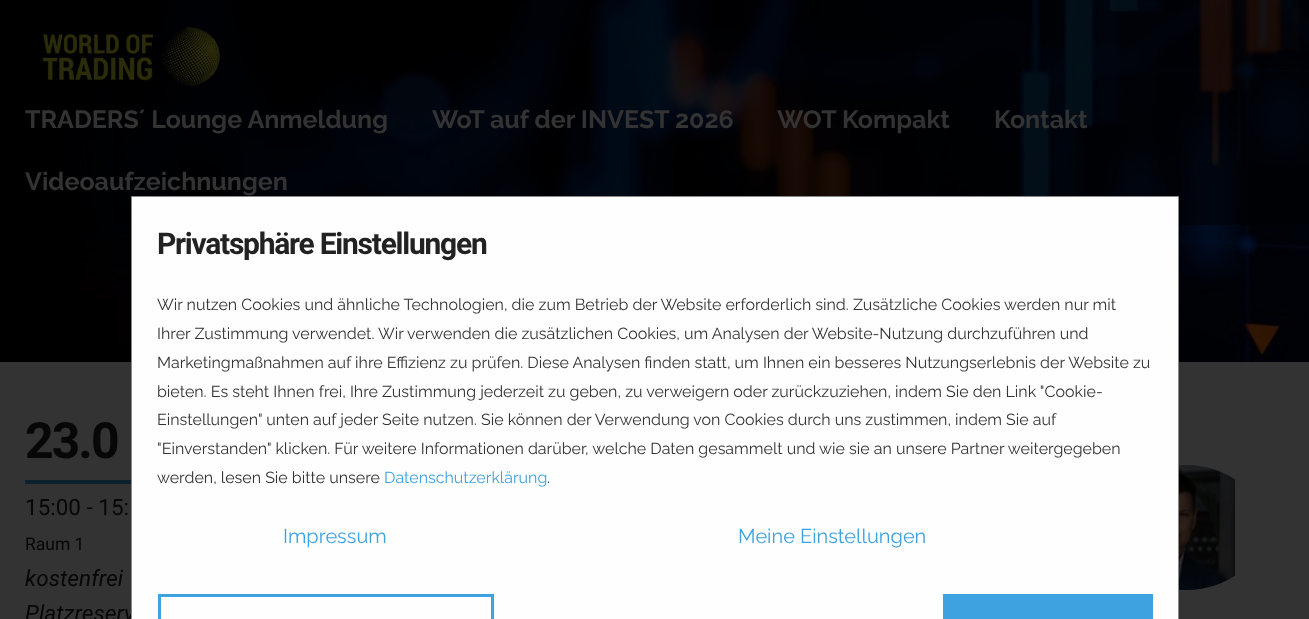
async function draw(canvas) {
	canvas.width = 1309;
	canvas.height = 619;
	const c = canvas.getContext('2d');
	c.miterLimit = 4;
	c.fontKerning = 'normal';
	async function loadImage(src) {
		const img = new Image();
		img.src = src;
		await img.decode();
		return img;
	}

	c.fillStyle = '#333';
	c.fillRect(0, 0, 1309, 619);
	c.drawImage(await loadImage('img2.png'), 0, 0, 1309, 362);
	c.fillStyle = '#00000080';
	c.fillRect(114, 0, 1195, 225);
	c.drawImage(await loadImage('img1.png'), 42, 27, 178, 59);
	c.font = '100 25px Raleway';
	c.fillStyle = '#333';
	for (const [text, x, y] of [
		['TRADERS´ Lounge Anmeldung', 25, 128],
		['WoT auf der INVEST 2026', 432, 128],
		['WOT Kompakt', 777, 128],
		['Kontakt', 994, 128],
		['Videoaufzeichnungen', 25, 190],
	]) {
		c.fillText(text, x, y);
	}
	c.letterSpacing = '-2px';
	c.font = 'bold 50px Roboto';
	c.fillStyle = '#070707';
	c.fillText('23.0', 25, 458);
	c.fillStyle = '#0c202d';
	c.fillRect(25, 480, 106, 4);
	c.letterSpacing = '0px';
	c.font = '22.5px Roboto';
	c.fillStyle = '#070707';
	c.fillText('15:00 - 15:', 25, 515);
	c.font = '17.5px Roboto';
	c.fillText('Raum 1', 25, 550);
	c.font = 'italic 22.5px Roboto';
	c.fillText('kostenfrei', 25, 586);
	c.fillText('Platzreserv', 25, 621);
	c.drawImage(await loadImage('img3.png'), 1179, 465, 56, 125);
	c.fillStyle = '#fefefe';
	c.beginPath();
	c.rect(131.5, 196.5, 1047, 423);
	c.fill();
	c.strokeStyle = '#888';
	c.stroke();
	c.letterSpacing = '-1.25px';
	c.font = 'bold 30px Roboto';
	c.fillStyle = '#222';
	c.fillText('Privatsphäre Einstellungen', 157, 254);
	c.letterSpacing = '0px';
	c.font = '100 16px "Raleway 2"';
	c.fillStyle = '#333';
	for (const [text, x, y] of [
		['Wir nutzen Cookies und ähnliche Technologien, die zum Betrieb der Website erforderlich sind. Zusätzliche Cookies werden nur mit', 157, 310],
		['Ihrer Zustimmung verwendet. Wir verwenden die zusätzlichen Cookies, um Analysen der Website-Nutzung durchzuführen und', 157, 339],
		['Marketingmaßnahmen auf ihre Effizienz zu prüfen. Diese Analysen finden statt, um Ihnen ein besseres Nutzungserlebnis der Website zu', 157, 368],
		['bieten. Es steht Ihnen frei, Ihre Zustimmung jederzeit zu geben, zu verweigern oder zurückzuziehen, indem Sie den Link "Cookie-', 157, 397],
		['Einstellungen" unten auf jeder Seite nutzen. Sie können der Verwendung von Cookies durch uns zustimmen, indem Sie auf', 157, 425],
		['"Einverstanden" klicken. Für weitere Informationen darüber, welche Daten gesammelt und wie sie an unsere Partner weitergegeben', 157, 454],
		['werden, lesen Sie bitte unsere', 157, 483],
	]) {
		c.fillText(text, x, y);
	}
	c.fillStyle = '#3ea2e0';
	c.fillText('Datenschutzerklärung', 384, 483);
	c.fillStyle = '#333';
	c.fillText('.', 547, 483);
	c.font = '100 20px "Raleway 2"';
	c.fillStyle = '#3ea2e0';
	c.fillText('Impressum', 283, 543);
	c.fillText('Meine Einstellungen', 738, 543);
	c.strokeStyle = '#3ea2e0';
	c.lineWidth = 3;
	c.strokeRect(159.5, 595.5, 333, 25);
	c.fillRect(943, 594, 210, 25);
}

draw(document.querySelector('canvas'));
